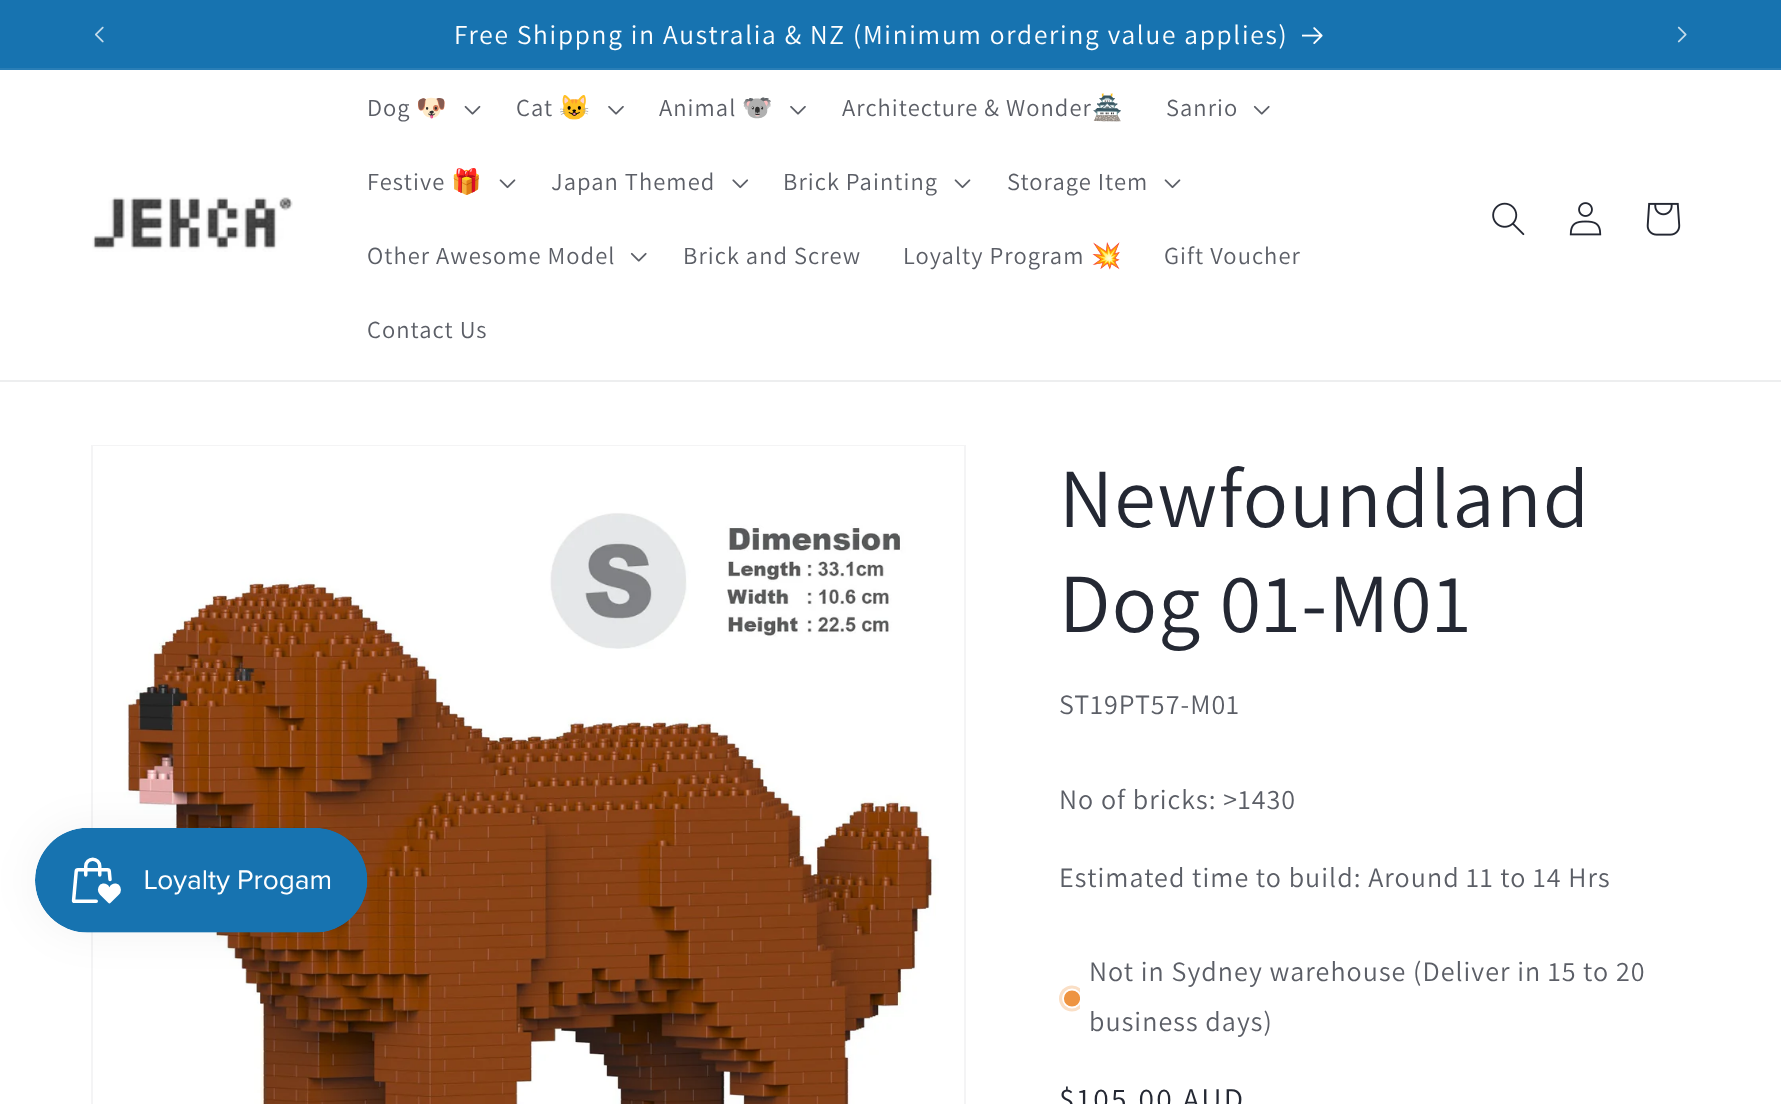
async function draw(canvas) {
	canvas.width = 1781;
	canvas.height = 1104;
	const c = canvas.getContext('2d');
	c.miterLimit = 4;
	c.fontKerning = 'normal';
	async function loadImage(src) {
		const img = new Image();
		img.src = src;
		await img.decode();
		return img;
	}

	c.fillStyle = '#fff';
	c.fillRect(0, 0, 1781, 1104);
	c.fillStyle = '#1773b0';
	c.fillRect(0, 0, 1781, 68);
	c.fillStyle = '#2a7eb6';
	c.fillRect(0, 68, 1781, 2);
	c.drawImage(await loadImage('img1.png'), 95, 26, 9, 17);
	c.letterSpacing = '1.75px';
	c.font = '27.3px Assistant';
	c.fillStyle = '#fff';
	c.fillText('Free Shippng in Australia & NZ (Minimum ordering value applies)', 454, 44);
	c.drawImage(await loadImage('img2.png'), 1302, 27, 21, 17);
	c.drawImage(await loadImage('img3.png'), 1677, 26, 10, 17);
	c.fillStyle = '#edeeef';
	c.fillRect(0, 380, 1781, 2);
	c.drawImage(await loadImage('img4.png'), 92, 197, 201, 55);
	c.letterSpacing = '1.05px';
	c.font = '24.5px Assistant';
	c.fillStyle = '#5b5e66';
	c.fillText('Dog', 367, 116);
	c.font = '24.5px Noto Color Emoji';
	c.fillText('🐶', 416, 116);
	c.drawImage(await loadImage('img5.png'), 464, 105, 17, 10);
	c.font = '24.5px Assistant';
	c.fillText('Cat', 516, 116);
	c.font = '24.5px Noto Color Emoji';
	c.fillText('😺', 559, 116);
	c.drawImage(await loadImage('img6.png'), 608, 106, 16, 9);
	c.font = '24.5px Assistant';
	c.fillText('Animal', 659, 116);
	c.font = '24.5px Noto Color Emoji';
	c.fillText('🐨', 742, 116);
	c.drawImage(await loadImage('img6.png'), 790, 106, 16, 9);
	c.font = '24.5px Assistant';
	c.fillText('Architecture & Wonder', 842, 116);
	c.font = '24.5px Noto Color Emoji';
	c.fillText('🏯', 1092, 116);
	c.font = '24.5px Assistant';
	c.fillText('Sanrio', 1166, 116);
	c.drawImage(await loadImage('img7.png'), 1253, 105, 17, 10);
	c.fillText('Festive', 367, 190);
	c.font = '24.5px Noto Color Emoji';
	c.fillText('🎁', 451, 190);
	c.drawImage(await loadImage('img8.png'), 499, 179, 17, 10);
	c.font = '24.5px Assistant';
	c.fillText('Japan Themed', 551, 190);
	c.drawImage(await loadImage('img9.png'), 732, 179, 17, 10);
	c.fillText('Brick Painting', 783, 190);
	c.drawImage(await loadImage('img8.png'), 954, 179, 17, 10);
	c.fillText('Storage Item', 1007, 190);
	c.drawImage(await loadImage('img8.png'), 1164, 179, 17, 10);
	c.fillText('Other Awesome Model', 367, 264);
	c.drawImage(await loadImage('img7.png'), 630, 252, 17, 10);
	c.fillText('Brick and Screw', 683, 264);
	c.fillText('Loyalty Program', 903, 264);
	c.font = '24.5px Noto Color Emoji';
	c.fillText('💥', 1091, 264);
	c.font = '24.5px Assistant';
	c.fillText('Gift Voucher', 1164, 264);
	c.fillText('Contact Us', 367, 338);
	c.drawImage(await loadImage('img10.png'), 1492, 202, 33, 34);
	c.drawImage(await loadImage('img11.png'), 1569, 202, 33, 34);
	c.drawImage(await loadImage('img12.png'), 1646, 202, 35, 34);
	c.strokeStyle = '#f4f4f5';
	c.lineWidth = 2;
	c.strokeRect(92, 446, 873, 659);
	c.drawImage(await loadImage('img14.png'), 93, 446, 871, 658);
	c.fillStyle = '#0000000d';
	c.filter = 'blur(22px)';
	c.beginPath();
	c.roundRect(35, 828, 333, 105, 52.5);
	c.fill();
	c.filter = 'none';
	c.drawImage(await loadImage('img13.png'), 35, 828, 333, 105);
	c.letterSpacing = '1.25px';
	c.font = '84px Assistant';
	c.fillStyle = '#242833';
	c.fillText('Newfoundland', 1059, 527);
	c.fillText('Dog 01-M01', 1059, 632);
	c.letterSpacing = '1.05px';
	c.font = '28px Assistant';
	c.fillStyle = '#5b5e66';
	for (const [text, x, y] of [
		['ST19PT57-M01', 1059, 714],
		['No of bricks: >1430', 1059, 809],
		['Estimated time to build: Around 11 to 14 Hrs', 1059, 887],
		['Not in Sydney warehouse (Deliver in 15 to 20', 1089, 981],
	]) {
		c.fillText(text, x, y);
	}
	c.save();
	c.beginPath();
	c.rect(1059, 985, 21, 27);
	c.clip();
	c.fillStyle = '#fadfc6';
	c.beginPath();
	c.arc(1072, 998.5, 13, 0, 2 * Math.PI);
	c.fill();
	c.fillStyle = '#ee9441';
	c.beginPath();
	c.arc(1072, 998.5, 9, 0, 2 * Math.PI);
	c.fill();
	c.strokeStyle = '#fff';
	c.lineWidth = 1.8;
	c.stroke();
	c.restore();
	c.fillText('business days)', 1089, 1031);
	c.letterSpacing = '2.25px';
	c.font = '31.5px Assistant';
	c.fillStyle = '#242833';
	c.fillText('$105.00 AUD', 1059, 1110);
}

draw(document.querySelector('canvas'));
